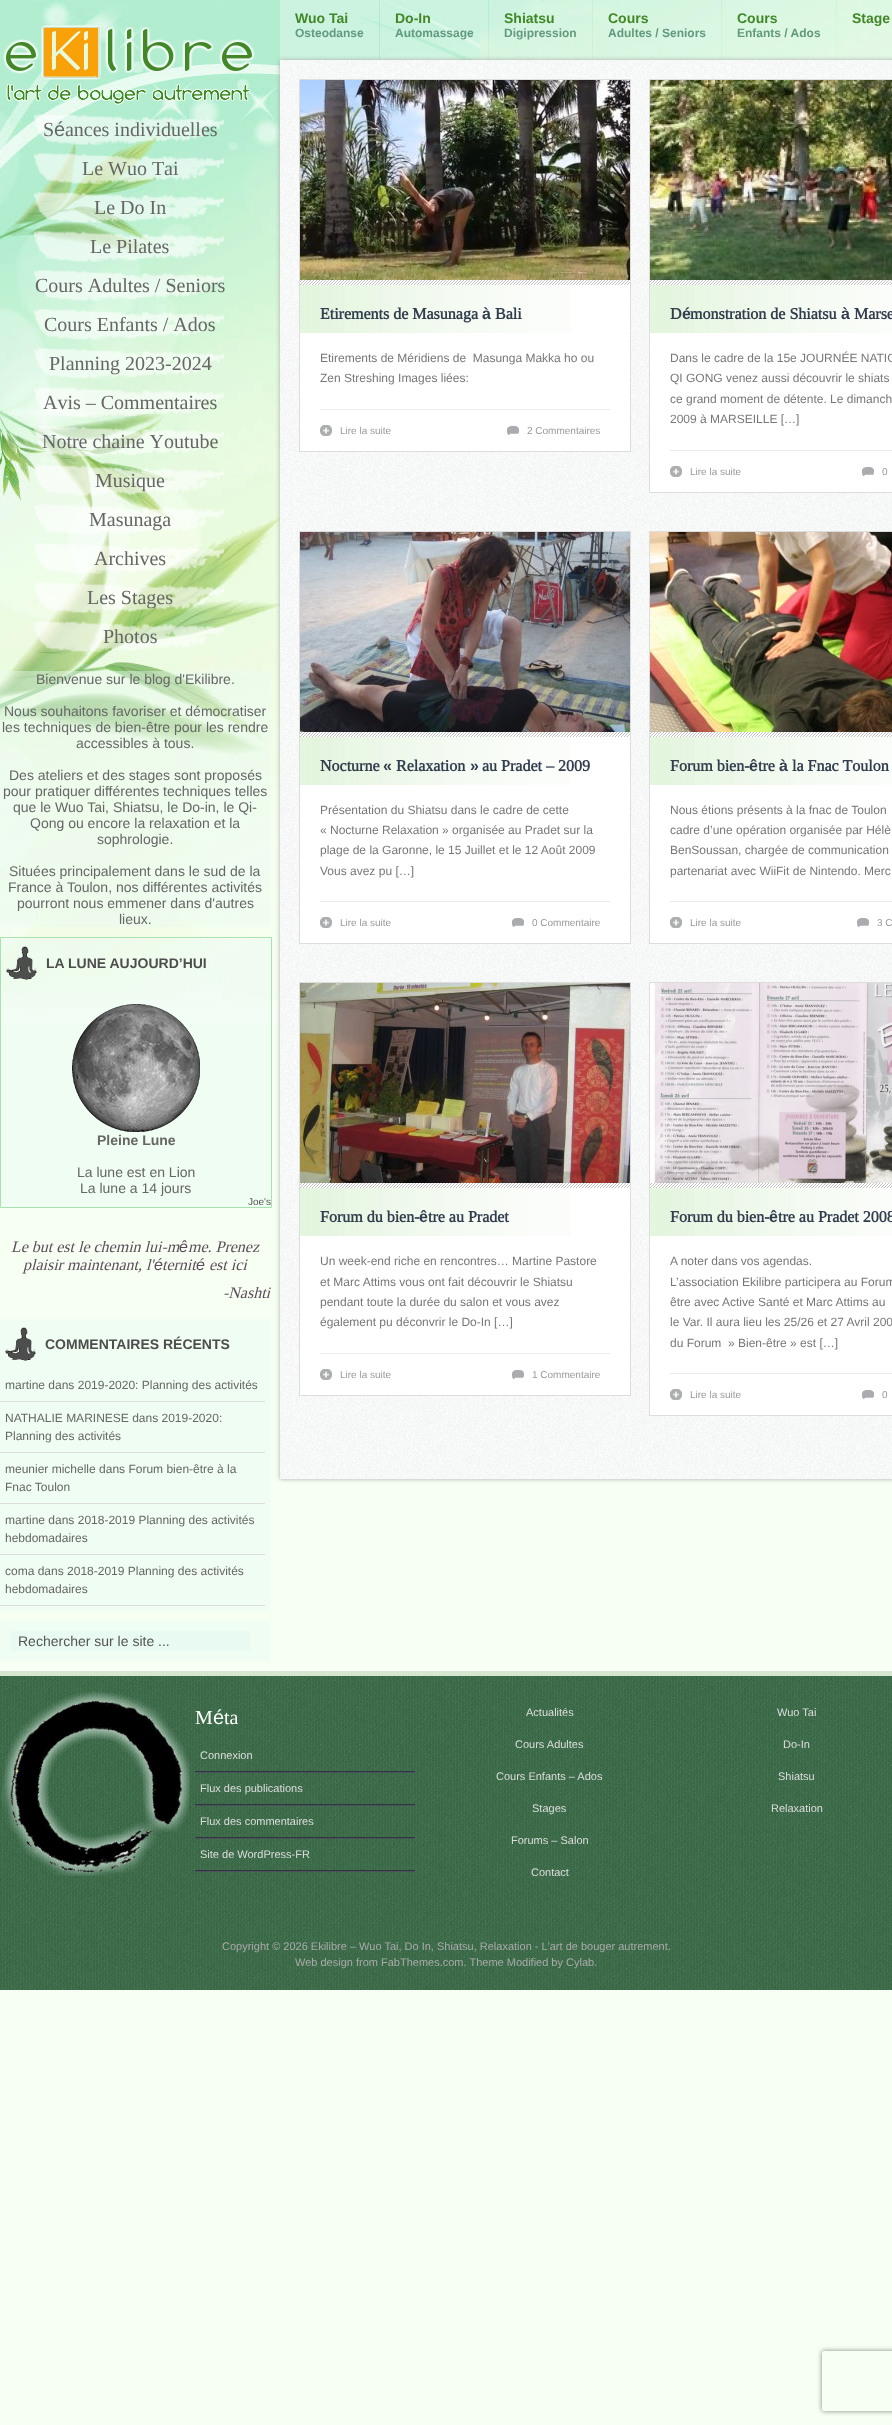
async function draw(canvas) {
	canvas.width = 892;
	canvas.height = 2425;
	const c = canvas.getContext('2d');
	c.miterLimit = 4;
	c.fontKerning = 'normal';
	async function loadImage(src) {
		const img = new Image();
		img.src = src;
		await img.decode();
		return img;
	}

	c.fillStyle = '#f6fff2';
	c.fillRect(0, 0, 892, 2425);
	c.drawImage(await loadImage('img1.png'), 0, 0, 892, 1024);
	c.fillStyle = '#e9fbf273';
	c.fillRect(280, 0, 99, 60);
	c.font = 'bold 14px Liberation Sans';
	c.fillStyle = '#438728';
	c.fillText('Wuo Tai', 295, 23);
	c.font = 'bold 12px Liberation Sans';
	c.fillStyle = '#63997c';
	c.fillText('Osteodanse', 295, 37);
	c.fillStyle = '#e9fbf273';
	c.fillRect(380, 0, 108, 60);
	c.font = 'bold 14px Liberation Sans';
	c.fillStyle = '#438728';
	c.fillText('Do-In', 395, 23);
	c.font = 'bold 12px Liberation Sans';
	c.fillStyle = '#63997c';
	c.fillText('Automassage', 395, 37);
	c.fillStyle = '#e9fbf273';
	c.fillRect(489, 0, 103, 60);
	c.font = 'bold 14px Liberation Sans';
	c.fillStyle = '#438728';
	c.fillText('Shiatsu', 504, 23);
	c.font = 'bold 12px Liberation Sans';
	c.fillStyle = '#63997c';
	c.fillText('Digipression', 504, 37);
	c.fillStyle = '#e9fbf273';
	c.fillRect(593, 0, 128, 60);
	c.font = 'bold 14px Liberation Sans';
	c.fillStyle = '#438728';
	c.fillText('Cours', 608, 23);
	c.font = 'bold 12px Liberation Sans';
	c.fillStyle = '#63997c';
	c.fillText('Adultes / Seniors', 608, 37);
	c.fillStyle = '#e9fbf273';
	c.fillRect(722, 0, 114, 60);
	c.font = 'bold 14px Liberation Sans';
	c.fillStyle = '#438728';
	c.fillText('Cours', 737, 23);
	c.font = 'bold 12px Liberation Sans';
	c.fillStyle = '#63997c';
	c.fillText('Enfants / Ados', 737, 37);
	c.fillStyle = '#e9fbf273';
	c.fillRect(837, 0, 55, 60);
	c.font = 'bold 14px Liberation Sans';
	c.fillStyle = '#438728';
	c.fillText('Stage', 852, 23);
	c.drawImage(await loadImage('img2.png'), 3, 24, 252, 81);
	c.drawImage(await loadImage('img3.png'), 34, 114, 190, 31);
	c.font = '20px Liberation Serif';
	c.fillStyle = '#666';
	c.fillText('S', 43, 136);
	c.font = '20px Liberation Sans';
	c.fillText('é', 54, 136);
	c.font = '20px Liberation Serif';
	c.fillText('ances individuelles', 65, 136);
	c.drawImage(await loadImage('img4.png'), 34, 153, 190, 31);
	c.fillText('Le Wuo Tai', 82, 175);
	c.drawImage(await loadImage('img5.png'), 34, 192, 190, 31);
	c.fillText('Le Do In', 94, 214);
	c.drawImage(await loadImage('img6.png'), 34, 231, 190, 31);
	c.fillText('Le Pilates', 90, 253);
	c.drawImage(await loadImage('img7.png'), 34, 270, 190, 31);
	c.fillText('Cours Adultes / Seniors', 35, 292);
	c.drawImage(await loadImage('img8.png'), 34, 309, 190, 31);
	c.fillText('Cours Enfants / Ados', 44, 331);
	c.drawImage(await loadImage('img9.png'), 34, 348, 190, 31);
	c.fillText('Planning 2023-2024', 49, 370);
	c.drawImage(await loadImage('img10.png'), 34, 387, 190, 31);
	c.fillText('Avis – Commentaires', 43, 409);
	c.drawImage(await loadImage('img11.png'), 34, 426, 190, 31);
	c.fillText('Notre chaine Youtube', 42, 448);
	c.drawImage(await loadImage('img12.png'), 34, 465, 190, 31);
	c.fillText('Musique', 95, 487);
	c.drawImage(await loadImage('img13.png'), 34, 504, 190, 31);
	c.fillText('Masunaga', 89, 526);
	c.drawImage(await loadImage('img14.png'), 34, 543, 190, 31);
	c.fillText('Archives', 94, 565);
	c.drawImage(await loadImage('img15.png'), 34, 582, 190, 31);
	c.fillText('Les Stages', 87, 604);
	c.drawImage(await loadImage('img16.png'), 34, 621, 190, 31);
	c.fillText('Photos', 103, 643);
	c.fillStyle = '#e9fbf273';
	c.fillRect(0, 671, 270, 256);
	c.font = '14px Liberation Sans';
	c.fillStyle = '#666';
	for (const [text, x, y] of [
		['Bienvenue sur le blog d\'Ekilibre.', 36, 684],
		['Nous souhaitons favoriser et démocratiser', 4, 716],
		['les techniques de bien-être pour les rendre', 2, 732],
		['accessibles à tous.', 76, 748],
		['Des ateliers et des stages sont proposés', 9, 780],
		['pour pratiquer différentes techniques telles', 3, 796],
		['que le Wuo Tai, Shiatsu, le Do-in, le Qi-', 13, 812],
		['Qong ou encore la relaxation et la', 30, 828],
		['sophrologie.', 97, 844],
		['Situées principalement dans le sud de la', 9, 876],
		['France à Toulon, nos différentes activités', 8, 892],
		['pourront nous emmener dans d\'autres', 17, 908],
		['lieux.', 119, 924],
	]) {
		c.fillText(text, x, y);
	}
	c.fillStyle = '#e9fbf273';
	c.beginPath();
	c.rect(0.5, 937.5, 271, 270);
	c.fill();
	c.strokeStyle = '#a8e2b0';
	c.stroke();
	c.drawImage(await loadImage('img17.png'), 6, 946, 31, 34);
	c.font = 'bold 14px Liberation Sans';
	c.fillStyle = '#4d4d4d';
	c.fillText('LA LUNE AUJOURD’HUI', 46, 968);
	c.drawImage(await loadImage('img18.png'), 72, 1004, 128, 128);
	c.fillStyle = '#666';
	c.fillText('Pleine Lune', 97, 1145);
	c.font = '14px Liberation Sans';
	c.fillText('La lune est en Lion', 77, 1177);
	c.fillText('La lune a 14 jours', 80, 1193);
	c.font = '10px Liberation Sans';
	c.fillStyle = '#555';
	c.fillText('Joe\'s', 248, 1205);
	c.font = 'italic 16px Liberation Serif';
	c.fillStyle = '#5d4d5d';
	c.fillText('Le but est le chemin lui-m', 11, 1252);
	c.font = 'italic 16px Liberation Sans';
	c.fillText('ê', 179, 1252);
	c.font = 'italic 16px Liberation Serif';
	c.fillText('me. Prenez', 188, 1252);
	c.fillText('plaisir maintenant, l\'', 23, 1270);
	c.font = 'italic 16px Liberation Sans';
	c.fillText('é', 154, 1270);
	c.font = 'italic 16px Liberation Serif';
	c.fillText('ternit', 162, 1270);
	c.font = 'italic 16px Liberation Sans';
	c.fillText('é', 196, 1270);
	c.font = 'italic 16px Liberation Serif';
	c.fillText('est ici', 209, 1270);
	c.fillText('-Nashti', 223, 1298);
	c.fillStyle = '#f0fdf2';
	c.fillRect(0, 1319, 270, 292);
	c.drawImage(await loadImage('img19.png'), 5, 1327, 31, 34);
	c.font = 'bold 14px Liberation Sans';
	c.fillStyle = '#4d4d4d';
	c.fillText('COMMENTAIRES RÉCENTS', 45, 1349);
	c.fillStyle = '#ddd';
	c.fillRect(0, 1401, 265, 1);
	c.font = '12px Liberation Sans';
	c.fillStyle = '#666';
	c.fillText('martine dans 2019-2020: Planning des activités', 5, 1389);
	c.fillStyle = '#ddd';
	c.fillRect(0, 1452, 265, 1);
	c.fillStyle = '#666';
	c.fillText('NATHALIE MARINESE dans 2019-2020:', 5, 1422);
	c.fillText('Planning des activités', 5, 1440);
	c.fillStyle = '#ddd';
	c.fillRect(0, 1503, 265, 1);
	c.fillStyle = '#666';
	c.fillText('meunier michelle dans Forum bien-être à la', 5, 1473);
	c.fillText('Fnac Toulon', 5, 1491);
	c.fillStyle = '#ddd';
	c.fillRect(0, 1554, 265, 1);
	c.fillStyle = '#666';
	c.fillText('martine dans 2018-2019 Planning des activités', 5, 1524);
	c.fillText('hebdomadaires', 5, 1542);
	c.fillStyle = '#ddd';
	c.fillRect(0, 1605, 265, 1);
	c.fillStyle = '#666';
	c.fillText('coma dans 2018-2019 Planning des activités', 5, 1575);
	c.fillText('hebdomadaires', 5, 1593);
	c.fillStyle = '#f0fdf2';
	c.fillRect(0, 1621, 270, 40);
	c.fillStyle = '#e8faf1';
	c.fillRect(10, 1631, 240, 20);
	c.font = '14px Liberation Sans';
	c.fillStyle = '#555';
	c.fillText('Rechercher sur le site ...', 18, 1646);
	c.fillStyle = '#aaa';
	c.filter = 'blur(2px)';
	c.beginPath();
	c.rect(280, 60, 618, 1419);
	c.fill();
	c.filter = 'none';
	c.drawImage(await loadImage('img20.png'), 280, 60, 612, 1419);
	c.strokeStyle = '#ddd';
	c.strokeRect(299.5, 79.5, 331, 372);
	c.fillStyle = '#fff';
	c.fillRect(300, 280, 330, 171);
	c.drawImage(await loadImage('img21.png'), 300, 80, 330, 205);
	c.drawImage(await loadImage('img22.png'), 300, 285, 271, 48);
	c.font = 'bold 16px Liberation Serif';
	c.fillStyle = '#323d4e';
	c.fillText('Etirements de Masunaga', 320, 319);
	c.font = 'bold 16px Liberation Sans';
	c.fillText('à', 482, 319);
	c.font = 'bold 16px Liberation Serif';
	c.fillText('Bali', 495, 319);
	c.font = '12px Liberation Sans';
	c.fillStyle = '#777';
	c.fillText('Etirements de Méridiens de  Masunga Makka ho ou', 320, 362);
	c.fillText('Zen Streshing Images liées:', 320, 382);
	c.fillStyle = '#ececec';
	c.fillRect(320, 409, 290, 1);
	c.drawImage(await loadImage('img23.png'), 320, 425, 12, 11);
	c.font = '10px Liberation Sans';
	c.fillStyle = '#999';
	c.fillText('Lire la suite', 340, 434);
	c.drawImage(await loadImage('img24.png'), 507, 426, 12, 9);
	c.fillText('2 Commentaires', 527, 434);
	c.strokeRect(649.5, 79.5, 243, 413);
	c.fillStyle = '#fff';
	c.fillRect(650, 280, 242, 212);
	c.drawImage(await loadImage('img25.png'), 650, 80, 242, 205);
	c.drawImage(await loadImage('img26.png'), 650, 285, 242, 48);
	c.font = 'bold 16px Liberation Serif';
	c.fillStyle = '#323d4e';
	c.fillText('D', 670, 319);
	c.font = 'bold 16px Liberation Sans';
	c.fillText('é', 682, 319);
	c.font = 'bold 16px Liberation Serif';
	c.fillText('monstration de Shiatsu', 690, 319);
	c.font = 'bold 16px Liberation Sans';
	c.fillText('à', 841, 319);
	c.font = 'bold 16px Liberation Serif';
	c.fillText('Marse', 854, 319);
	c.font = '12px Liberation Sans';
	c.fillStyle = '#777';
	for (const [text, x, y] of [
		['Dans le cadre de la 15e JOURNÉE NATIO', 670, 362],
		['QI GONG venez aussi découvrir le shiats', 670, 382],
		['ce grand moment de détente. Le dimanch', 670, 403],
		['2009 à MARSEILLE […]', 670, 423],
	]) {
		c.fillText(text, x, y);
	}
	c.fillStyle = '#ececec';
	c.fillRect(670, 450, 222, 1);
	c.drawImage(await loadImage('img23.png'), 670, 466, 12, 11);
	c.font = '10px Liberation Sans';
	c.fillStyle = '#999';
	c.fillText('Lire la suite', 690, 475);
	c.drawImage(await loadImage('img24.png'), 862, 467, 12, 9);
	c.fillText('0', 882, 475);
	c.strokeRect(299.5, 531.5, 331, 412);
	c.fillStyle = '#fff';
	c.fillRect(300, 732, 330, 211);
	c.drawImage(await loadImage('img27.png'), 300, 532, 330, 205);
	c.drawImage(await loadImage('img22.png'), 300, 737, 271, 48);
	c.font = 'bold 16px Liberation Serif';
	c.fillStyle = '#323d4e';
	c.fillText('Nocturne', 320, 771);
	c.font = 'bold 16px Liberation Sans';
	c.fillText('«', 383, 771);
	c.font = 'bold 16px Liberation Serif';
	c.fillText('Relaxation', 396, 771);
	c.font = 'bold 16px Liberation Sans';
	c.fillText('»', 470, 771);
	c.font = 'bold 16px Liberation Serif';
	c.fillText('au Pradet – 2009', 482, 771);
	c.font = '12px Liberation Sans';
	c.fillStyle = '#777';
	for (const [text, x, y] of [
		['Présentation du Shiatsu dans le cadre de cette', 320, 814],
		['« Nocturne Relaxation » organisée au Pradet sur la', 320, 834],
		['plage de la Garonne, le 15 Juillet et le 12 Août 2009', 320, 854],
		['Vous avez pu […]', 320, 875],
	]) {
		c.fillText(text, x, y);
	}
	c.fillStyle = '#ececec';
	c.fillRect(320, 901, 290, 1);
	c.drawImage(await loadImage('img23.png'), 320, 917, 12, 11);
	c.font = '10px Liberation Sans';
	c.fillStyle = '#999';
	c.fillText('Lire la suite', 340, 926);
	c.drawImage(await loadImage('img24.png'), 512, 918, 12, 9);
	c.fillText('0 Commentaire', 532, 926);
	c.strokeRect(649.5, 531.5, 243, 412);
	c.fillStyle = '#fff';
	c.fillRect(650, 732, 242, 211);
	c.drawImage(await loadImage('img28.png'), 650, 532, 242, 205);
	c.drawImage(await loadImage('img26.png'), 650, 737, 242, 48);
	c.font = 'bold 16px Liberation Serif';
	c.fillStyle = '#323d4e';
	c.fillText('Forum bien-', 670, 771);
	c.font = 'bold 16px Liberation Sans';
	c.fillText('ê', 749, 771);
	c.font = 'bold 16px Liberation Serif';
	c.fillText('tre', 758, 771);
	c.font = 'bold 16px Liberation Sans';
	c.fillText('à', 779, 771);
	c.font = 'bold 16px Liberation Serif';
	c.fillText('la Fnac Toulon', 792, 771);
	c.font = '12px Liberation Sans';
	c.fillStyle = '#777';
	for (const [text, x, y] of [
		['Nous étions présents à la fnac de Toulon', 670, 814],
		['cadre d’une opération organisée par Hélè', 670, 834],
		['BenSoussan, chargée de communication', 670, 854],
		['partenariat avec WiiFit de Nintendo. Merc', 670, 875],
	]) {
		c.fillText(text, x, y);
	}
	c.fillStyle = '#ececec';
	c.fillRect(670, 901, 222, 1);
	c.drawImage(await loadImage('img23.png'), 670, 917, 12, 11);
	c.font = '10px Liberation Sans';
	c.fillStyle = '#999';
	c.fillText('Lire la suite', 690, 926);
	c.drawImage(await loadImage('img24.png'), 857, 918, 12, 9);
	c.fillText('3 C', 877, 926);
	c.strokeRect(299.5, 982.5, 331, 413);
	c.fillStyle = '#fff';
	c.fillRect(300, 1183, 330, 212);
	c.drawImage(await loadImage('img29.png'), 300, 983, 330, 205);
	c.drawImage(await loadImage('img22.png'), 300, 1188, 271, 48);
	c.font = 'bold 16px Liberation Serif';
	c.fillStyle = '#323d4e';
	c.fillText('Forum du bien-', 320, 1222);
	c.font = 'bold 16px Liberation Sans';
	c.fillText('ê', 419, 1222);
	c.font = 'bold 16px Liberation Serif';
	c.fillText('tre au Pradet', 428, 1222);
	c.font = '12px Liberation Sans';
	c.fillStyle = '#777';
	for (const [text, x, y] of [
		['Un week-end riche en rencontres… Martine Pastore', 320, 1265],
		['et Marc Attims vous ont fait découvrir le Shiatsu', 320, 1286],
		['pendant toute la durée du salon et vous avez', 320, 1306],
		['également pu déconvrir le Do-In […]', 320, 1326],
	]) {
		c.fillText(text, x, y);
	}
	c.fillStyle = '#ececec';
	c.fillRect(320, 1353, 290, 1);
	c.drawImage(await loadImage('img23.png'), 320, 1369, 12, 11);
	c.font = '10px Liberation Sans';
	c.fillStyle = '#999';
	c.fillText('Lire la suite', 340, 1378);
	c.drawImage(await loadImage('img24.png'), 512, 1370, 12, 9);
	c.fillText('1 Commentaire', 532, 1378);
	c.strokeRect(649.5, 982.5, 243, 433);
	c.fillStyle = '#fff';
	c.fillRect(650, 1183, 242, 232);
	c.drawImage(await loadImage('img30.png'), 650, 983, 242, 205);
	c.drawImage(await loadImage('img26.png'), 650, 1188, 242, 48);
	c.font = 'bold 16px Liberation Serif';
	c.fillStyle = '#323d4e';
	c.fillText('Forum du bien-', 670, 1222);
	c.font = 'bold 16px Liberation Sans';
	c.fillText('ê', 769, 1222);
	c.font = 'bold 16px Liberation Serif';
	c.fillText('tre au Pradet 2008', 778, 1222);
	c.font = '12px Liberation Sans';
	c.fillStyle = '#777';
	for (const [text, x, y] of [
		['A noter dans vos agendas.', 670, 1265],
		['L’association Ekilibre participera au Forum', 670, 1286],
		['être avec Active Santé et Marc Attims au', 670, 1306],
		['le Var. Il aura lieu les 25/26 et 27 Avril 200', 670, 1326],
		['du Forum  » Bien-être » est […]', 670, 1347],
	]) {
		c.fillText(text, x, y);
	}
	c.fillStyle = '#ececec';
	c.fillRect(670, 1373, 222, 1);
	c.drawImage(await loadImage('img23.png'), 670, 1389, 12, 11);
	c.font = '10px Liberation Sans';
	c.fillStyle = '#999';
	c.fillText('Lire la suite', 690, 1398);
	c.drawImage(await loadImage('img24.png'), 862, 1390, 12, 9);
	c.fillText('0', 882, 1398);
	c.drawImage(await loadImage('img31.png'), 0, 1676, 892, 242);
	c.fillStyle = '#d6e6d1';
	c.fillRect(0, 1671, 892, 5);
	c.drawImage(await loadImage('img32.png'), 1, 1691, 189, 185);
	c.font = '20px Liberation Serif';
	c.fillStyle = '#fff';
	c.fillText('M', 195, 1724);
	c.font = '20px Liberation Sans';
	c.fillText('é', 213, 1724);
	c.font = '20px Liberation Serif';
	c.fillText('ta', 224, 1724);
	c.fillStyle = '#4c525b';
	c.fillRect(195, 1772, 220, 1);
	c.fillStyle = '#2e3642';
	c.fillRect(195, 1771, 220, 1);
	c.font = '11px Liberation Sans';
	c.fillStyle = '#ddd';
	c.fillText('Connexion', 200, 1759);
	c.fillStyle = '#4c525b';
	c.fillRect(195, 1805, 220, 1);
	c.fillStyle = '#2e3642';
	c.fillRect(195, 1804, 220, 1);
	c.fillStyle = '#ddd';
	c.fillText('Flux des publications', 200, 1792);
	c.fillStyle = '#4c525b';
	c.fillRect(195, 1838, 220, 1);
	c.fillStyle = '#2e3642';
	c.fillRect(195, 1837, 220, 1);
	c.fillStyle = '#ddd';
	c.fillText('Flux des commentaires', 200, 1825);
	c.fillStyle = '#4c525b';
	c.fillRect(195, 1871, 220, 1);
	c.fillStyle = '#2e3642';
	c.fillRect(195, 1870, 220, 1);
	c.fillStyle = '#ddd';
	for (const [text, x, y] of [
		['Site de WordPress-FR', 200, 1858],
		['Actualités', 526, 1716],
		['Cours Adultes', 515, 1748],
		['Cours Enfants – Ados', 496, 1780],
		['Stages', 532, 1812],
		['Forums – Salon', 511, 1844],
		['Contact', 531, 1876],
		['Wuo Tai', 777, 1716],
		['Do-In', 783, 1748],
		['Shiatsu', 778, 1780],
		['Relaxation', 771, 1812],
	]) {
		c.fillText(text, x, y);
	}
	c.drawImage(await loadImage('img33.png'), 0, 1918, 892, 72);
	c.fillStyle = '#aaa';
	c.fillText('Copyright © 2026 Ekilibre – Wuo Tai, Do In, Shiatsu, Relaxation - L\'art de bouger autrement.', 222, 1950);
	c.fillText('Web design from FabThemes.com. Theme Modified by Cylab.', 295, 1966);
	c.save();
	c.beginPath();
	c.moveTo(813, 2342);
	c.lineTo(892, 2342);
	c.lineTo(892, 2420);
	c.lineTo(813, 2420);
	c.closePath();
	c.moveTo(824, 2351);
	c.lineTo(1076, 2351);
	c.bezierCurveTo(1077, 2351, 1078, 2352, 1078, 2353);
	c.lineTo(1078, 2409);
	c.bezierCurveTo(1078, 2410, 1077, 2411, 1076, 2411);
	c.lineTo(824, 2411);
	c.bezierCurveTo(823, 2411, 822, 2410, 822, 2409);
	c.lineTo(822, 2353);
	c.bezierCurveTo(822, 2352, 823, 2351, 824, 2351);
	c.closePath();
	c.clip('evenodd');
	c.fillStyle = '#808080';
	c.filter = 'blur(2.5px)';
	c.beginPath();
	c.roundRect(822, 2351, 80, 60, 2);
	c.fill();
	c.filter = 'none';
	c.restore();
}

draw(document.querySelector('canvas'));
